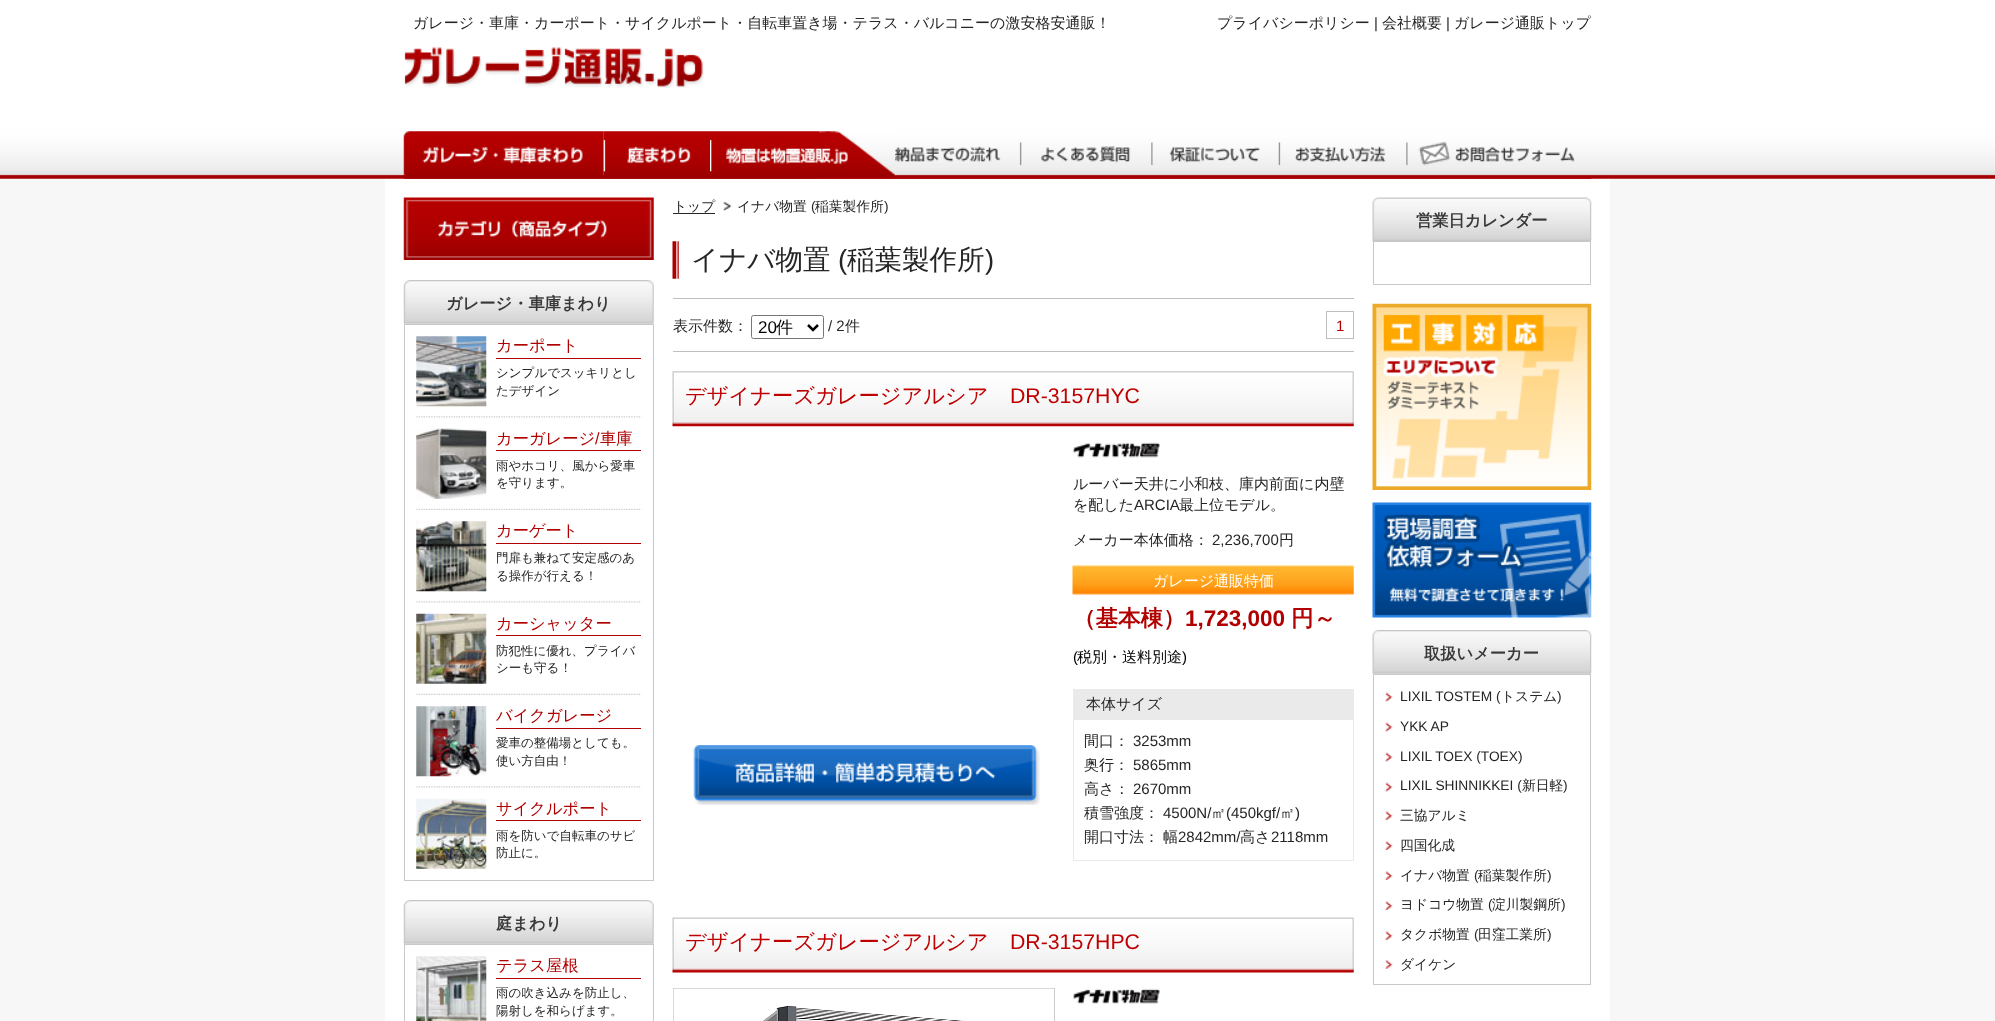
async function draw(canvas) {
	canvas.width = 1995;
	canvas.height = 1021;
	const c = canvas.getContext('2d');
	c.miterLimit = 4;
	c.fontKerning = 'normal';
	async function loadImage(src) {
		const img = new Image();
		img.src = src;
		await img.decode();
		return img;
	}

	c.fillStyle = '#f7f7f7';
	c.fillRect(0, 0, 1995, 1021);
	c.fillStyle = '#fff';
	c.fillRect(0, 0, 1995, 131);
	c.font = '500 15px WenQuanYi Zen Hei';
	c.fillStyle = '#252525';
	c.fillText('ガレージ・車庫・カーポート・サイクルポート・自転車置き場・テラス・バルコニーの激安格安通販！', 413, 28);
	c.drawImage(await loadImage('img1.png'), 404, 47, 300, 41);
	c.fillText('プライバシーポリシー', 1217, 28);
	c.font = '15px Liberation Sans';
	c.fillText('|', 1374, 28);
	c.font = '500 15px WenQuanYi Zen Hei';
	c.fillText('会社概要', 1382, 28);
	c.font = '15px Liberation Sans';
	c.fillText('|', 1446, 28);
	c.font = '500 15px WenQuanYi Zen Hei';
	c.fillText('ガレージ通販トップ', 1454, 28);
	c.drawImage(await loadImage('img2.png'), 0, 131, 1995, 48);
	c.drawImage(await loadImage('img3.png'), 403, 131, 201, 48);
	c.drawImage(await loadImage('img4.png'), 603, 131, 107, 48);
	c.drawImage(await loadImage('img5.png'), 710, 131, 185, 48);
	c.drawImage(await loadImage('img6.png'), 895, 142, 128, 37);
	c.drawImage(await loadImage('img7.png'), 1022, 142, 132, 37);
	c.drawImage(await loadImage('img8.png'), 1153, 142, 129, 37);
	c.drawImage(await loadImage('img9.png'), 1281, 142, 128, 37);
	c.drawImage(await loadImage('img10.png'), 1408, 141, 184, 38);
	c.fillStyle = '#fff';
	c.fillRect(385, 179, 1225, 842);
	c.drawImage(await loadImage('img11.png'), 403, 197, 251, 63);
	c.drawImage(await loadImage('img12.png'), 403, 280, 251, 44);
	c.font = 'bold 16.25px WenQuanYi Zen Hei';
	c.fillStyle = '#393939';
	c.fillText('ガレージ・車庫まわり', 446, 309);
	c.strokeStyle = '#c9c9c9';
	c.strokeRect(404.5, 324.5, 249, 556);
	c.drawImage(await loadImage('img13.png'), 416, 416, 226, 2);
	c.drawImage(await loadImage('img14.png'), 416, 336, 71, 71);
	c.fillStyle = '#b10000';
	c.fillRect(496, 358, 145, 1);
	c.font = '500 16.25px WenQuanYi Zen Hei';
	c.fillText('カーポート', 496, 351);
	c.font = '500 12.5px WenQuanYi Zen Hei';
	c.fillStyle = '#252525';
	c.fillText('シンプルでスッキリとし', 496, 377);
	c.fillText('たデザイン', 496, 395);
	c.drawImage(await loadImage('img15.png'), 416, 508, 226, 2);
	c.drawImage(await loadImage('img16.png'), 416, 428, 71, 71);
	c.fillStyle = '#b10000';
	c.fillRect(496, 450, 145, 1);
	c.font = '500 16.25px WenQuanYi Zen Hei';
	c.fillText('カーガレージ', 496, 444);
	c.font = '16.25px Liberation Sans';
	c.fillText('/', 595, 444);
	c.font = '500 16.25px WenQuanYi Zen Hei';
	c.fillText('車庫', 600, 444);
	c.font = '500 12.5px WenQuanYi Zen Hei';
	c.fillStyle = '#252525';
	c.fillText('雨やホコリ、風から愛車', 496, 470);
	c.fillText('を守ります。', 496, 487);
	c.drawImage(await loadImage('img13.png'), 416, 601, 226, 2);
	c.drawImage(await loadImage('img17.png'), 416, 521, 71, 71);
	c.fillStyle = '#b10000';
	c.fillRect(496, 543, 145, 1);
	c.font = '500 16.25px WenQuanYi Zen Hei';
	c.fillText('カーゲート', 496, 536);
	c.font = '500 12.5px WenQuanYi Zen Hei';
	c.fillStyle = '#252525';
	c.fillText('門扉も兼ねて安定感のあ', 496, 562);
	c.fillText('る操作が行える！', 496, 580);
	c.drawImage(await loadImage('img18.png'), 416, 693, 226, 2);
	c.drawImage(await loadImage('img19.png'), 416, 613, 71, 71);
	c.fillStyle = '#b10000';
	c.fillRect(496, 635, 145, 1);
	c.font = '500 16.25px WenQuanYi Zen Hei';
	c.fillText('カーシャッター', 496, 629);
	c.font = '500 12.5px WenQuanYi Zen Hei';
	c.fillStyle = '#252525';
	c.fillText('防犯性に優れ、プライバ', 496, 655);
	c.fillText('シーも守る！', 496, 672);
	c.drawImage(await loadImage('img13.png'), 416, 786, 226, 2);
	c.drawImage(await loadImage('img20.png'), 416, 706, 71, 71);
	c.fillStyle = '#b10000';
	c.fillRect(496, 728, 145, 1);
	c.font = '500 16.25px WenQuanYi Zen Hei';
	c.fillText('バイクガレージ', 496, 721);
	c.font = '500 12.5px WenQuanYi Zen Hei';
	c.fillStyle = '#252525';
	c.fillText('愛車の整備場としても。', 496, 747);
	c.fillText('使い方自由！', 496, 765);
	c.drawImage(await loadImage('img21.png'), 416, 798, 71, 71);
	c.fillStyle = '#b10000';
	c.fillRect(496, 820, 145, 1);
	c.font = '500 16.25px WenQuanYi Zen Hei';
	c.fillText('サイクルポート', 496, 814);
	c.font = '500 12.5px WenQuanYi Zen Hei';
	c.fillStyle = '#252525';
	c.fillText('雨を防いで自転車のサビ', 496, 840);
	c.fillText('防止に。', 496, 857);
	c.drawImage(await loadImage('img22.png'), 403, 900, 251, 44);
	c.font = 'bold 16.25px WenQuanYi Zen Hei';
	c.fillStyle = '#393939';
	c.fillText('庭まわり', 496, 929);
	c.strokeRect(404.5, 944.5, 249, 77);
	c.drawImage(await loadImage('img23.png'), 416, 956, 71, 65);
	c.fillStyle = '#b10000';
	c.fillRect(496, 978, 145, 1);
	c.font = '500 16.25px WenQuanYi Zen Hei';
	c.fillText('テラス屋根', 496, 971);
	c.font = '500 12.5px WenQuanYi Zen Hei';
	c.fillStyle = '#252525';
	c.fillText('雨の吹き込みを防止し、', 496, 997);
	c.fillText('陽射しを和らげます。', 496, 1015);
	c.font = '500 13.75px WenQuanYi Zen Hei';
	c.fillText('トップ', 673, 211);
	c.fillStyle = '#262626';
	c.fillRect(673, 213, 42, 1);
	c.drawImage(await loadImage('img24.png'), 723, 201, 9, 10);
	c.fillStyle = '#252525';
	c.fillText('イナバ物置', 737, 211);
	c.font = '13.75px Liberation Sans';
	c.fillText('(', 811, 211);
	c.font = '500 13.75px WenQuanYi Zen Hei';
	c.fillText('稲葉製作所', 815, 211);
	c.font = '13.75px Liberation Sans';
	c.fillText(')', 884, 211);
	c.drawImage(await loadImage('img25.png'), 672, 241, 7, 38);
	c.font = '500 27.5px WenQuanYi Zen Hei';
	c.fillText('イナバ物置', 691, 269);
	c.font = '27.5px Liberation Sans';
	c.fillText('(', 838, 269);
	c.font = '500 27.5px WenQuanYi Zen Hei';
	c.fillText('稲葉製作所', 847, 269);
	c.font = '27.5px Liberation Sans';
	c.fillText(')', 985, 269);
	c.fillStyle = '#bfbfbf';
	c.fillRect(673, 298, 681, 1);
	c.fillRect(673, 351, 681, 1);
	c.font = '500 15px WenQuanYi Zen Hei';
	c.fillStyle = '#252525';
	c.fillText('表示件数：', 673, 331);
	c.beginPath();
	c.roundRect(751.5, 315.5, 72, 23, 2);
	c.strokeStyle = '#767676';
	c.stroke();
	c.beginPath();
	c.moveTo(808, 325);
	c.lineTo(813, 330);
	c.lineTo(818, 325);
	c.strokeStyle = '#000';
	c.lineWidth = 2.5;
	c.stroke();
	c.font = '17px Liberation Sans';
	c.fillStyle = '#000';
	c.fillText('20', 758, 333);
	c.font = '500 17px WenQuanYi Zen Hei';
	c.fillText('件', 776, 333);
	c.font = '15px Liberation Sans';
	c.fillStyle = '#252525';
	c.fillText('/ 2', 828, 331);
	c.font = '500 15px WenQuanYi Zen Hei';
	c.fillText('件', 845, 331);
	c.strokeStyle = '#bfbfbf';
	c.lineWidth = 1;
	c.strokeRect(1326.5, 311.5, 27, 27);
	c.font = '15px Liberation Sans';
	c.fillStyle = '#b10000';
	c.fillText('1', 1336, 331);
	c.drawImage(await loadImage('img26.png'), 672, 371, 682, 56);
	c.font = '500 21.25px WenQuanYi Zen Hei';
	c.fillStyle = '#bf0000';
	c.fillText('デザイナーズガレージアルシア', 685, 403);
	c.font = '21.25px Liberation Sans';
	c.fillText('DR-3157HYC', 1010, 403);
	c.drawImage(await loadImage('img27.png'), 693, 745, 347, 60);
	c.drawImage(await loadImage('img28.png'), 1072, 442, 88, 16);
	c.font = '500 15px WenQuanYi Zen Hei';
	c.fillStyle = '#252525';
	c.fillText('ルーバー天井に小和枝、庫内前面に内壁', 1073, 489);
	c.fillText('を配した', 1073, 510);
	c.font = '15px Liberation Sans';
	c.fillText('ARCIA', 1134, 510);
	c.font = '500 15px WenQuanYi Zen Hei';
	c.fillText('最上位モデル。', 1179, 510);
	c.fillText('メーカー本体価格：', 1073, 545);
	c.font = '15px Liberation Sans';
	c.fillText('2,236,700', 1212, 545);
	c.font = '500 15px WenQuanYi Zen Hei';
	c.fillText('円', 1279, 545);
	c.drawImage(await loadImage('img29.png'), 1072, 565, 282, 30);
	c.fillStyle = '#fff';
	c.fillText('ガレージ通販特価', 1153, 586);
	c.font = 'bold 22.5px WenQuanYi Zen Hei';
	c.fillStyle = '#b10000';
	c.fillText('（基本棟）', 1073, 626);
	c.font = 'bold 22.5px Liberation Sans';
	c.fillText('1,723,000', 1185, 626);
	c.font = 'bold 22.5px WenQuanYi Zen Hei';
	c.fillText('円～', 1291, 626);
	c.font = '15px Liberation Sans';
	c.fillStyle = '#000';
	c.fillText('(', 1073, 662);
	c.font = '500 15px WenQuanYi Zen Hei';
	c.fillText('税別・送料別途', 1077, 662);
	c.font = '15px Liberation Sans';
	c.fillText(')', 1182, 662);
	c.strokeStyle = '#eaeaea';
	c.strokeRect(1073.5, 689.5, 280, 171);
	c.fillStyle = '#eaeaea';
	c.fillRect(1074, 690, 279, 30);
	c.font = '500 15px WenQuanYi Zen Hei';
	c.fillStyle = '#252525';
	c.fillText('本体サイズ', 1086, 709);
	c.fillText('間口：', 1084, 746);
	c.font = '15px Liberation Sans';
	c.fillText('3253mm', 1133, 746);
	c.font = '500 15px WenQuanYi Zen Hei';
	c.fillText('奥行：', 1084, 770);
	c.font = '15px Liberation Sans';
	c.fillText('5865mm', 1133, 770);
	c.font = '500 15px WenQuanYi Zen Hei';
	c.fillText('高さ：', 1084, 794);
	c.font = '15px Liberation Sans';
	c.fillText('2670mm', 1133, 794);
	c.font = '500 15px WenQuanYi Zen Hei';
	c.fillText('積雪強度：', 1084, 818);
	c.font = '15px Liberation Sans';
	c.fillText('4500N/', 1163, 818);
	c.font = '500 15px WenQuanYi Zen Hei';
	c.fillText('㎡', 1211, 818);
	c.font = '15px Liberation Sans';
	c.fillText('(450kgf/', 1226, 818);
	c.font = '500 15px WenQuanYi Zen Hei';
	c.fillText('㎡', 1280, 818);
	c.font = '15px Liberation Sans';
	c.fillText(')', 1295, 818);
	c.font = '500 15px WenQuanYi Zen Hei';
	c.fillText('開口寸法：', 1084, 842);
	c.fillText('幅', 1163, 842);
	c.font = '15px Liberation Sans';
	c.fillText('2842mm/', 1178, 842);
	c.font = '500 15px WenQuanYi Zen Hei';
	c.fillText('高さ', 1240, 842);
	c.font = '15px Liberation Sans';
	c.fillText('2118mm', 1271, 842);
	c.drawImage(await loadImage('img30.png'), 672, 917, 682, 56);
	c.font = '500 21.25px WenQuanYi Zen Hei';
	c.fillStyle = '#bf0000';
	c.fillText('デザイナーズガレージアルシア', 685, 949);
	c.font = '21.25px Liberation Sans';
	c.fillText('DR-3157HPC', 1010, 949);
	c.strokeStyle = '#ccc';
	c.strokeRect(673.5, 988.5, 381, 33);
	c.drawImage(await loadImage('img31.png'), 673, 988, 381, 33);
	c.drawImage(await loadImage('img32.png'), 1072, 988, 88, 16);
	c.drawImage(await loadImage('img33.png'), 1372, 197, 220, 45);
	c.font = 'bold 16.25px WenQuanYi Zen Hei';
	c.fillStyle = '#393939';
	c.fillText('営業日カレンダー', 1416, 226);
	c.strokeStyle = '#c9c9c9';
	c.strokeRect(1373.5, 241.5, 217, 43);
	c.drawImage(await loadImage('img34.png'), 1372, 303, 220, 187);
	c.drawImage(await loadImage('img35.png'), 1372, 502, 220, 116);
	c.drawImage(await loadImage('img36.png'), 1372, 630, 220, 44);
	c.fillText('取扱いメーカー', 1424, 659);
	c.strokeRect(1373.5, 674.5, 217, 310);
	c.drawImage(await loadImage('img37.png'), 1385, 692, 8, 10);
	c.font = '13.75px Liberation Sans';
	c.fillStyle = '#252525';
	c.fillText('LIXIL TOSTEM (', 1400, 701);
	c.font = '500 13.75px WenQuanYi Zen Hei';
	c.fillText('トステム', 1501, 701);
	c.font = '13.75px Liberation Sans';
	c.fillText(')', 1557, 701);
	c.drawImage(await loadImage('img37.png'), 1385, 722, 8, 10);
	c.fillText('YKK AP', 1400, 731);
	c.drawImage(await loadImage('img37.png'), 1385, 752, 8, 10);
	c.fillText('LIXIL TOEX (TOEX)', 1400, 761);
	c.drawImage(await loadImage('img37.png'), 1385, 782, 8, 10);
	c.fillText('LIXIL SHINNIKKEI (', 1400, 790);
	c.font = '500 13.75px WenQuanYi Zen Hei';
	c.fillText('新日軽', 1522, 790);
	c.font = '13.75px Liberation Sans';
	c.fillText(')', 1563, 790);
	c.drawImage(await loadImage('img38.png'), 1385, 811, 8, 9);
	c.font = '500 13.75px WenQuanYi Zen Hei';
	c.fillText('三協アルミ', 1400, 820);
	c.drawImage(await loadImage('img38.png'), 1385, 841, 8, 9);
	c.fillText('四国化成', 1400, 850);
	c.drawImage(await loadImage('img38.png'), 1385, 871, 8, 9);
	c.fillText('イナバ物置', 1400, 880);
	c.font = '13.75px Liberation Sans';
	c.fillText('(', 1474, 880);
	c.font = '500 13.75px WenQuanYi Zen Hei';
	c.fillText('稲葉製作所', 1478, 880);
	c.font = '13.75px Liberation Sans';
	c.fillText(')', 1547, 880);
	c.drawImage(await loadImage('img38.png'), 1385, 901, 8, 9);
	c.font = '500 13.75px WenQuanYi Zen Hei';
	c.fillText('ヨドコウ物置', 1400, 909);
	c.font = '13.75px Liberation Sans';
	c.fillText('(', 1488, 909);
	c.font = '500 13.75px WenQuanYi Zen Hei';
	c.fillText('淀川製鋼所', 1492, 909);
	c.font = '13.75px Liberation Sans';
	c.fillText(')', 1561, 909);
	c.drawImage(await loadImage('img38.png'), 1385, 931, 8, 9);
	c.font = '500 13.75px WenQuanYi Zen Hei';
	c.fillText('タクボ物置', 1400, 939);
	c.font = '13.75px Liberation Sans';
	c.fillText('(', 1474, 939);
	c.font = '500 13.75px WenQuanYi Zen Hei';
	c.fillText('田窪工業所', 1478, 939);
	c.font = '13.75px Liberation Sans';
	c.fillText(')', 1547, 939);
	c.drawImage(await loadImage('img39.png'), 1385, 960, 8, 9);
	c.font = '500 13.75px WenQuanYi Zen Hei';
	c.fillText('ダイケン', 1400, 969);
}

draw(document.querySelector('canvas'));
